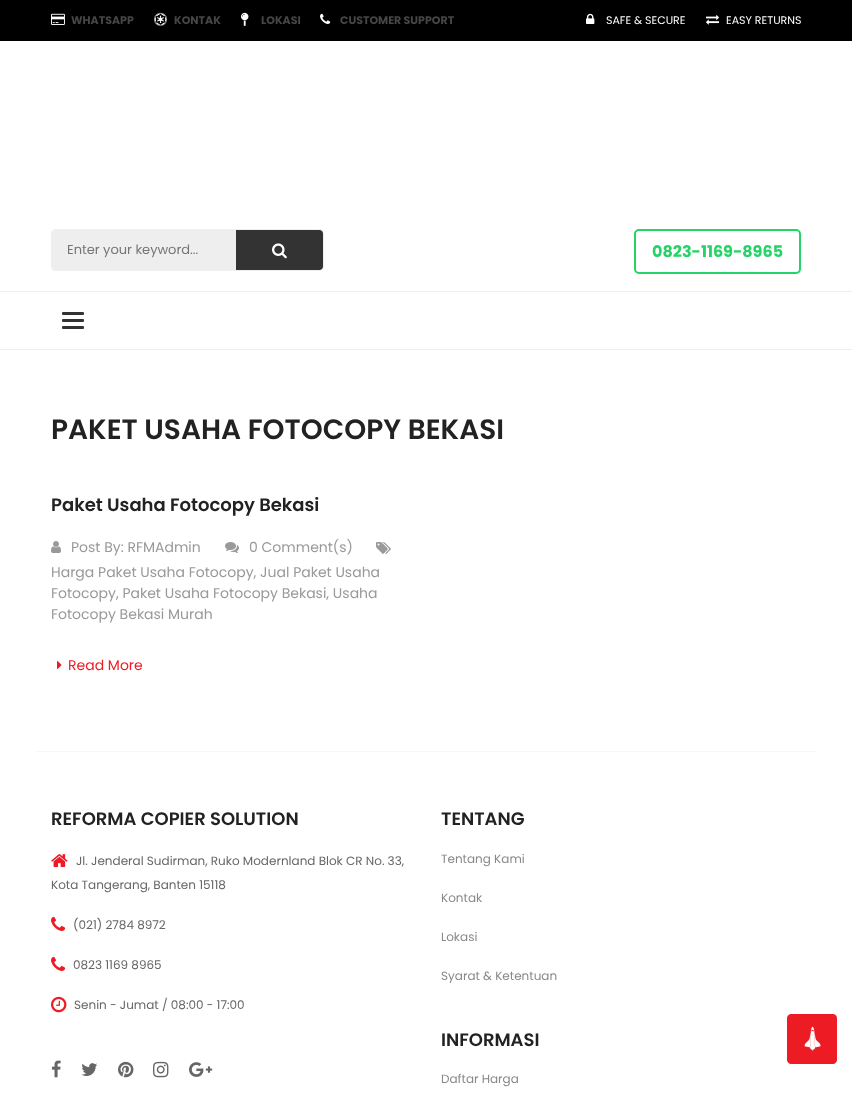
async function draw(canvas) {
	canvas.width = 852;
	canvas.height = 1094;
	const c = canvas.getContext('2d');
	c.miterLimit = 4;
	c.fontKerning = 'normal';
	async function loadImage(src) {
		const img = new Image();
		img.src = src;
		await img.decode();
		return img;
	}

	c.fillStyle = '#fff';
	c.fillRect(0, 0, 852, 1094);
	c.fillStyle = '#000';
	c.fillRect(0, 0, 852, 41);
	c.drawImage(await loadImage('img1.png'), 51, 13, 14, 12);
	c.font = 'bold 11px Poppins';
	c.fillStyle = '#464646';
	c.fillText('WHATSAPP', 71, 24);
	c.drawImage(await loadImage('img2.png'), 154, 12, 13, 14);
	c.fillText('KONTAK', 174, 24);
	c.drawImage(await loadImage('img3.png'), 241, 12, 8, 14);
	c.fillText('LOKASI', 261, 24);
	c.drawImage(await loadImage('img4.png'), 320, 13, 11, 11);
	c.fillText('CUSTOMER SUPPORT', 340, 24);
	c.drawImage(await loadImage('img5.png'), 586, 13, 9, 11);
	c.font = '11px Poppins';
	c.fillStyle = '#fff';
	c.fillText('SAFE & SECURE', 606, 24);
	c.drawImage(await loadImage('img6.png'), 706, 15, 13, 10);
	c.fillText('EASY RETURNS', 726, 24);
	c.fillStyle = '#eee';
	c.fillRect(0, 291, 852, 1);
	c.beginPath();
	c.roundRect(51.5, 229.5, 272, 41, 3.5);
	c.strokeStyle = '#eee';
	c.stroke();
	c.beginPath();
	c.roundRect(52, 230, 271, 40, 4);
	c.fill();
	c.font = '13px Poppins';
	c.fillStyle = '#757575';
	c.fillText('Enter your keyword...', 67, 254);
	c.fillStyle = '#333';
	c.beginPath();
	c.roundRect(236, 230, 87, 40, [0, 4, 4, 0]);
	c.fill();
	c.drawImage(await loadImage('img7.png'), 272, 243, 15, 16);
	c.beginPath();
	c.roundRect(635, 230, 165, 43, 4);
	c.strokeStyle = '#25d366';
	c.lineWidth = 2;
	c.stroke();
	c.font = 'bold 16px Poppins';
	c.fillStyle = '#25d366';
	c.fillText('0823-1169-8965', 652, 257);
	c.save();
	c.beginPath();
	c.rect(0, 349, 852, 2);
	c.clip();
	c.fillStyle = '#eee';
	c.filter = 'blur(0.5px)';
	c.beginPath();
	c.rect(0, 293, 852, 57);
	c.fill();
	c.filter = 'none';
	c.restore();
	c.fillStyle = '#333';
	c.beginPath();
	c.roundRect(62, 312, 22, 3, 1);
	c.fill();
	c.beginPath();
	c.roundRect(62, 319, 22, 3, 1);
	c.fill();
	c.beginPath();
	c.roundRect(62, 326, 22, 3, 1);
	c.fill();
	c.font = '600 28px Poppins';
	c.fillStyle = '#222';
	c.fillText('PAKET USAHA FOTOCOPY BEKASI', 51, 439);
	c.font = '600 18px Poppins';
	c.fillText('Paket Usaha Fotocopy Bekasi', 51, 511);
	c.drawImage(await loadImage('img8.png'), 51, 541, 10, 12);
	c.font = '14px Poppins';
	c.fillStyle = '#999';
	c.fillText('Post By: RFMAdmin', 71, 552);
	c.drawImage(await loadImage('img9.png'), 225, 542, 14, 11);
	c.fillText('0 Comment(s)', 249, 552);
	c.drawImage(await loadImage('img10.png'), 376, 542, 15, 12);
	for (const [text, x, y] of [
		['Harga Paket Usaha Fotocopy, Jual Paket Usaha', 51, 577],
		['Fotocopy, Paket Usaha Fotocopy Bekasi, Usaha', 51, 598],
		['Fotocopy Bekasi Murah', 51, 619],
	]) {
		c.fillText(text, x, y);
	}
	c.drawImage(await loadImage('img11.png'), 57, 661, 5, 8);
	c.fillStyle = '#ed1c24';
	c.fillText('Read More', 68, 670);
	c.beginPath();
	c.moveTo(36, 751.5);
	c.lineTo(816, 751.5);
	c.strokeStyle = '#eee';
	c.lineWidth = 1;
	c.setLineDash([1, 1]);
	c.stroke();
	c.font = '600 18px Poppins';
	c.fillStyle = '#222';
	c.fillText('REFORMA COPIER SOLUTION', 51, 825);
	c.drawImage(await loadImage('img12.png'), 51, 854, 17, 13);
	c.font = '12px Poppins';
	c.fillStyle = '#666';
	c.fillText('Jl. Jenderal Sudirman, Ruko Modernland Blok CR No. 33,', 76, 865);
	c.fillText('Kota Tangerang, Banten 15118', 51, 889);
	c.drawImage(await loadImage('img13.png'), 51, 916, 15, 15);
	c.fillText('(021) 2784 8972', 73, 929);
	c.drawImage(await loadImage('img13.png'), 51, 956, 15, 15);
	c.fillText('0823 1169 8965', 73, 969);
	c.drawImage(await loadImage('img14.png'), 51, 996, 16, 17);
	c.fillText('Senin - Jumat / 08:00 - 17:00', 74, 1009);
	c.drawImage(await loadImage('img15.png'), 51, 1060, 10, 18);
	c.drawImage(await loadImage('img16.png'), 81, 1063, 17, 13);
	c.drawImage(await loadImage('img17.png'), 118, 1061, 16, 17);
	c.drawImage(await loadImage('img18.png'), 153, 1061, 16, 17);
	c.drawImage(await loadImage('img19.png'), 189, 1062, 24, 15);
	c.font = '600 18px Poppins';
	c.fillStyle = '#222';
	c.fillText('TENTANG', 441, 825);
	c.font = '12px Poppins';
	c.fillStyle = '#888';
	for (const [text, x, y] of [
		['Tentang Kami', 441, 863],
		['Kontak', 441, 902],
		['Lokasi', 441, 941],
		['Syarat & Ketentuan', 441, 980],
	]) {
		c.fillText(text, x, y);
	}
	c.font = '600 18px Poppins';
	c.fillStyle = '#222';
	c.fillText('INFORMASI', 441, 1046);
	c.font = '12px Poppins';
	c.fillStyle = '#888';
	c.fillText('Daftar Harga', 441, 1083);
	c.fillStyle = '#ed1c24';
	c.beginPath();
	c.moveTo(787, 1060);
	c.lineTo(787, 1018);
	c.bezierCurveTo(787, 1016, 789, 1014, 791, 1014);
	c.lineTo(833, 1014);
	c.bezierCurveTo(835, 1014, 837, 1016, 837, 1018);
	c.lineTo(837, 1060);
	c.bezierCurveTo(837, 1062, 835, 1064, 833, 1064);
	c.lineTo(791, 1064);
	c.bezierCurveTo(789, 1064, 787, 1062, 787, 1060);
	c.closePath();
	c.fill();
	c.drawImage(await loadImage('img20.png'), 804, 1026, 17, 25);
}

draw(document.querySelector('canvas'));
